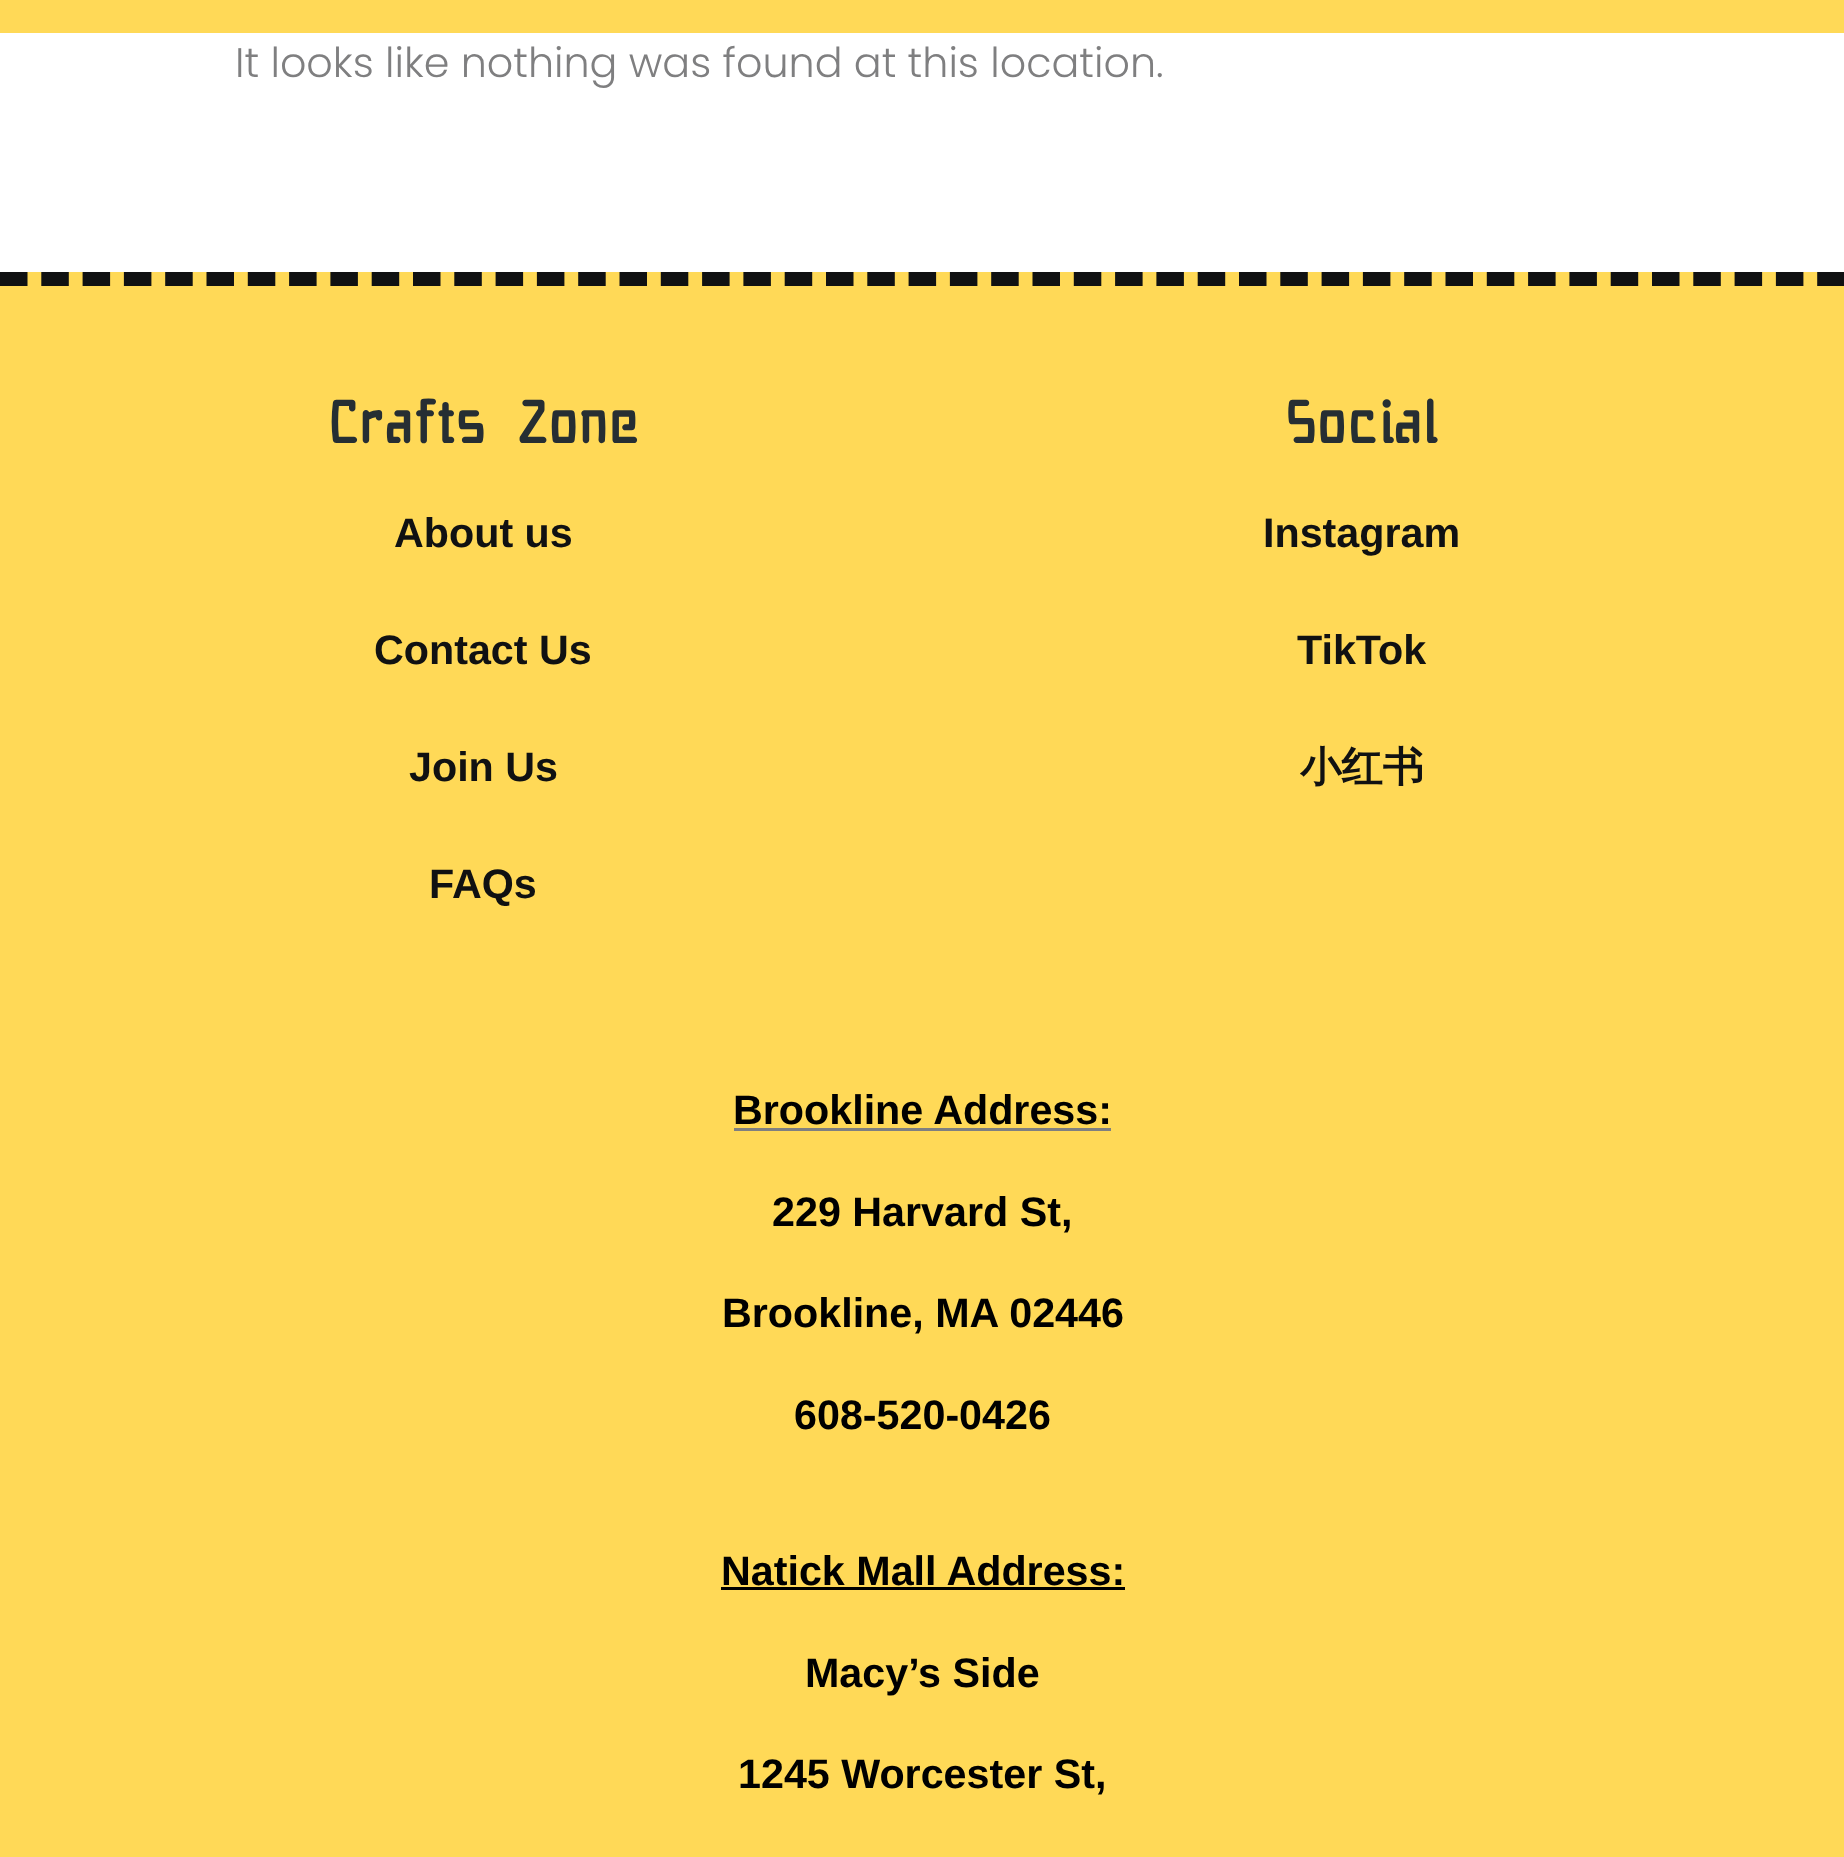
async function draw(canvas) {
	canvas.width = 1844;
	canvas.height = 1857;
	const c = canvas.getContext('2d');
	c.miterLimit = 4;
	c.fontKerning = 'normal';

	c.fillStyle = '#fff';
	c.fillRect(0, 0, 1844, 1857);
	c.fillStyle = '#ffd957';
	c.fillRect(0, 0, 1844, 33);
	c.font = '300 41.25px Poppins';
	c.fillStyle = '#7f7f80';
	c.fillText('It looks like nothing was found at this location.', 235, 77);
	c.fillStyle = '#ffd957';
	c.fillRect(0, 272, 1844, 1585);
	c.beginPath();
	c.moveTo(0, 279);
	c.lineTo(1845, 279);
	c.strokeStyle = '#101112';
	c.lineWidth = 13.8;
	c.setLineDash([27.5, 13.8]);
	c.stroke();
	c.font = 'bold 52.25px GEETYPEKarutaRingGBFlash';
	c.fillStyle = '#262e33';
	c.fillText('Crafts Zone', 327, 442);
	c.font = 'bold 41.25px Liberation Sans';
	c.fillStyle = '#101112';
	for (const [text, x, y] of [
		['About us', 394, 547],
		['Contact Us', 374, 664],
		['Join Us', 409, 781],
		['FAQs', 429, 898],
	]) {
		c.fillText(text, x, y);
	}
	c.font = 'bold 52.25px GEETYPEKarutaRingGBFlash';
	c.fillStyle = '#262e33';
	c.fillText('Social', 1285, 442);
	c.font = 'bold 41.25px Liberation Sans';
	c.fillStyle = '#101112';
	c.fillText('Instagram', 1263, 547);
	c.fillText('TikTok', 1297, 664);
	c.font = 'bold 41.25px WenQuanYi Zen Hei';
	c.fillText('小红书', 1300, 781);
	c.font = 'bold 41.25px Liberation Sans';
	c.fillStyle = '#000';
	c.fillText('Brookline Address:', 733, 1124);
	c.fillStyle = '#7f7f80';
	c.fillRect(734, 1128, 377, 3);
	c.fillStyle = '#000';
	for (const [text, x, y] of [
		['229 Harvard St,', 772, 1226],
		['Brookline, MA 02446', 722, 1327],
		['608-520-0426', 794, 1429],
		['Natick Mall Address:', 721, 1585],
	]) {
		c.fillText(text, x, y);
	}
	c.fillRect(721, 1587, 404, 3);
	c.fillText('Macy’s Side', 805, 1687);
	c.fillText('1245 Worcester St,', 738, 1788);
}

draw(document.querySelector('canvas'));
